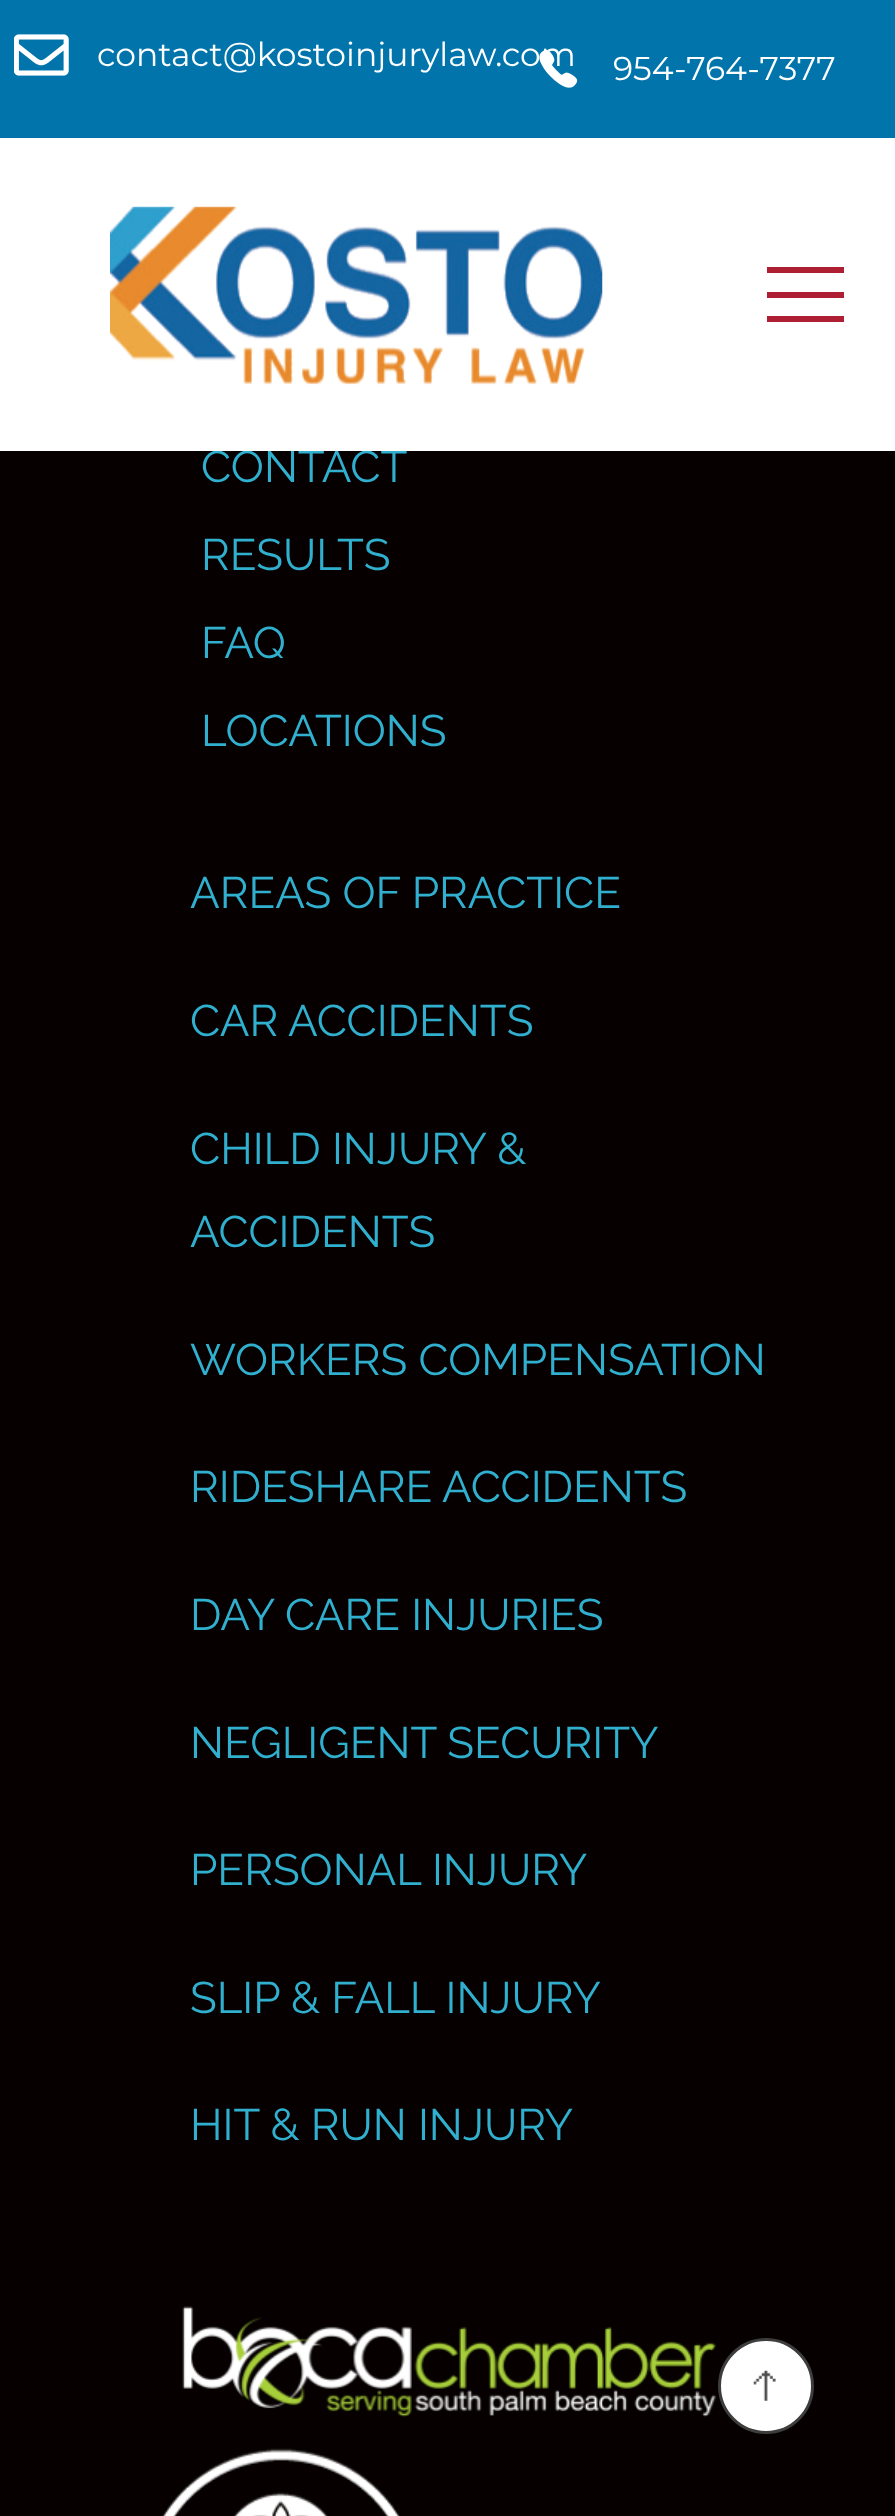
async function draw(canvas) {
	canvas.width = 895;
	canvas.height = 2516;
	const c = canvas.getContext('2d');
	c.miterLimit = 4;
	c.fontKerning = 'normal';
	async function loadImage(src) {
		const img = new Image();
		img.src = src;
		await img.decode();
		return img;
	}

	c.fillStyle = '#060001';
	c.fillRect(0, 0, 895, 2516);
	c.fillStyle = '#0074ab';
	c.fillRect(0, 0, 895, 138);
	c.drawImage(await loadImage('img1.png'), 14, 34, 55, 42);
	c.font = '33px Montserrat';
	c.fillStyle = '#fff';
	c.fillText('contact@kostoinjurylaw.com', 97, 66);
	c.drawImage(await loadImage('img2.png'), 539, 49, 39, 39);
	c.fillText('954-764-7377', 613, 80);
	c.font = '44px Raleway';
	c.fillStyle = '#30b0ce';
	c.fillText('CONTACT', 201, 482);
	c.fillStyle = '#fff';
	c.fillRect(0, 138, 895, 313);
	c.drawImage(await loadImage('img3.png'), 110, 206, 493, 179);
	for (const [x, y, w, h, color] of [
		[767, 267, 77, 6, '#ae1f33'],
		[767, 292, 77, 6, '#ae1f33'],
		[767, 316, 77, 6, '#ae1f33'],
	]) {
		c.fillStyle = color;
		c.fillRect(x, y, w, h);
	}
	c.fillStyle = '#30b0ce';
	for (const [text, x, y] of [
		['RESULTS', 201, 570],
		['FAQ', 201, 658],
		['LOCATIONS', 201, 746],
		['AREAS OF PRACTICE', 190, 908],
		['CAR ACCIDENTS', 190, 1036],
		['CHILD INJURY &', 190, 1164],
		['ACCIDENTS', 190, 1247],
		['WORKERS COMPENSATION', 190, 1375],
		['RIDESHARE ACCIDENTS', 190, 1502],
		['DAY CARE INJURIES', 190, 1630],
		['NEGLIGENT SECURITY', 190, 1758],
		['PERSONAL INJURY', 190, 1885],
		['SLIP & FALL INJURY', 190, 2013],
		['HIT & RUN INJURY', 190, 2140],
	]) {
		c.fillText(text, x, y);
	}
	c.drawImage(await loadImage('img4.png'), 182, 2306, 535, 111);
	c.drawImage(await loadImage('img5.png'), 162, 2448, 238, 68);
	c.fillStyle = '#fff';
	c.beginPath();
	c.arc(766, 2386, 46.5, 0, 2 * Math.PI);
	c.fill();
	c.strokeStyle = '#3d3d3d';
	c.lineWidth = 3;
	c.stroke();
	c.drawImage(await loadImage('img6.png'), 753, 2370, 23, 31);
}

draw(document.querySelector('canvas'));
